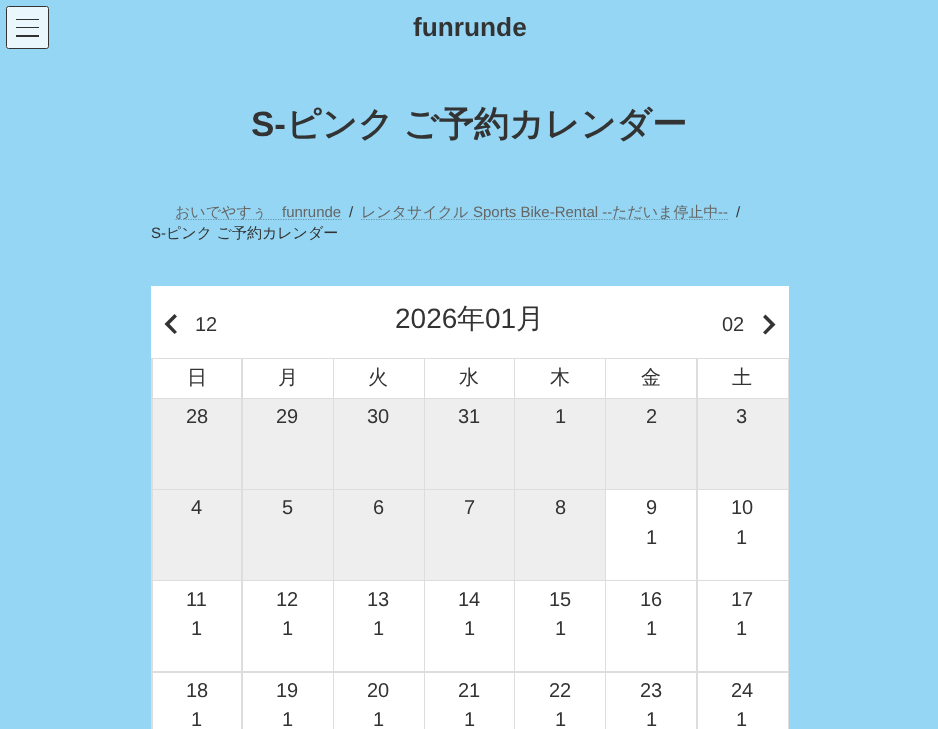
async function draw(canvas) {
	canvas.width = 938;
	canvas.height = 729;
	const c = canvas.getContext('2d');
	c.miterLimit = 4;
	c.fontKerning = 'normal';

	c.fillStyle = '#95d6f4';
	c.fillRect(0, 0, 938, 729);
	c.fillStyle = '#eaf7fd';
	c.beginPath();
	c.roundRect(6, 6, 43, 43, 2.5);
	c.fill();
	for (const [x, y, w, h, color] of [
		[16, 19, 23, 1, '#2f3133'],
		[16, 27, 23, 1, '#2f3133'],
		[16, 35, 23, 2, '#2f3133'],
	]) {
		c.fillStyle = color;
		c.fillRect(x, y, w, h);
	}
	c.beginPath();
	c.roundRect(6.5, 6.5, 42, 42, 2);
	c.strokeStyle = '#333';
	c.stroke();
	c.font = 'bold 26.25px Liberation Sans';
	c.fillStyle = '#333';
	c.fillText('funrunde', 413, 36);
	c.font = 'bold 35px Liberation Sans';
	c.fillText('S-', 251, 136);
	c.wordSpacing = '-1px';
	c.font = 'bold 35px WenQuanYi Zen Hei';
	c.fillText('ピンク ご予約カレンダー', 286, 136);
	c.beginPath();
	c.moveTo(175.5, 219.5);
	c.lineTo(341.5, 219.5);
	c.strokeStyle = '#6896ab';
	c.lineWidth = 1.2;
	c.setLineDash([1.25, 1.25]);
	c.stroke();
	c.wordSpacing = '0px';
	c.font = '500 15px WenQuanYi Zen Hei';
	c.fillStyle = '#666';
	c.fillText('おいでやすぅ', 175, 217);
	c.font = '15px Liberation Sans';
	c.fillText('funrunde', 282, 217);
	c.fillStyle = '#333';
	c.fillText('/', 349, 217);
	c.beginPath();
	c.moveTo(361, 219.5);
	c.lineTo(601.5, 219.5);
	c.stroke();
	c.font = '500 15px WenQuanYi Zen Hei';
	c.fillStyle = '#666';
	c.fillText('レンタサイクル', 361, 217);
	c.font = '15px Liberation Sans';
	c.fillText('Sports Bike-Rental --', 473, 217);
	c.beginPath();
	c.moveTo(601.5, 219.5);
	c.lineTo(728, 219.5);
	c.strokeStyle = '#0000004d';
	c.stroke();
	c.font = '500 15px WenQuanYi Zen Hei';
	c.fillText('ただいま停止中', 612, 217);
	c.font = '15px Liberation Sans';
	c.fillText('--', 718, 217);
	c.fillStyle = '#333';
	c.fillText('/', 736, 217);
	c.fillText('S-', 151, 238);
	c.font = '500 15px WenQuanYi Zen Hei';
	c.fillText('ピンク ご予約カレンダー', 166, 238);
	c.fillStyle = '#fff';
	c.fillRect(151, 286, 638, 72);
	c.fillStyle = '#333';
	c.beginPath();
	c.moveTo(177, 332);
	c.lineTo(174.5, 334);
	c.lineTo(164.5, 324);
	c.lineTo(174.5, 314);
	c.lineTo(177, 316.5);
	c.lineTo(169.5, 324);
	c.closePath();
	c.fill();
	c.font = '20px Liberation Sans';
	c.fillText('12', 195, 331);
	c.font = '28px Liberation Sans';
	c.fillText('2026', 395, 328);
	c.font = '500 28px WenQuanYi Zen Hei';
	c.fillText('年', 457, 328);
	c.font = '28px Liberation Sans';
	c.fillText('01', 485, 328);
	c.font = '500 28px WenQuanYi Zen Hei';
	c.fillText('月', 516, 328);
	c.font = '20px Liberation Sans';
	c.fillText('02', 722, 331);
	c.beginPath();
	c.moveTo(763, 332.5);
	c.lineTo(770.5, 324.5);
	c.lineTo(763, 317);
	c.lineTo(765.5, 314.5);
	c.lineTo(775.5, 324.5);
	c.lineTo(765.5, 334.5);
	c.closePath();
	c.fill();
	c.fillStyle = '#ddd';
	c.fillRect(151, 358, 638, 371);
	c.fillStyle = '#fff';
	c.fillRect(153, 359, 88, 39);
	c.font = '500 20px WenQuanYi Zen Hei';
	c.fillStyle = '#333';
	c.fillText('日', 187, 384);
	c.fillStyle = '#fff';
	c.fillRect(243, 359, 90, 39);
	c.fillStyle = '#333';
	c.fillText('月', 278, 384);
	c.fillStyle = '#fff';
	c.fillRect(334, 359, 90, 39);
	c.fillStyle = '#333';
	c.fillText('火', 368, 384);
	c.fillStyle = '#fff';
	c.fillRect(425, 359, 89, 39);
	c.fillStyle = '#333';
	c.fillText('水', 459, 384);
	c.fillStyle = '#fff';
	c.fillRect(515, 359, 90, 39);
	c.fillStyle = '#333';
	c.fillText('木', 550, 384);
	c.fillStyle = '#fff';
	c.fillRect(606, 359, 90, 39);
	c.fillStyle = '#333';
	c.fillText('金', 641, 384);
	c.fillStyle = '#fff';
	c.fillRect(698, 359, 90, 39);
	c.fillStyle = '#333';
	c.fillText('土', 732, 384);
	c.fillStyle = '#eee';
	c.fillRect(153, 399, 88, 90);
	c.font = '20px Liberation Sans';
	c.fillStyle = '#333';
	c.fillText('28', 186, 423);
	c.fillStyle = '#eee';
	c.fillRect(243, 399, 90, 90);
	c.fillStyle = '#333';
	c.fillText('29', 276, 423);
	c.fillStyle = '#eee';
	c.fillRect(334, 399, 90, 90);
	c.fillStyle = '#333';
	c.fillText('30', 367, 423);
	c.fillStyle = '#eee';
	c.fillRect(425, 399, 89, 90);
	c.fillStyle = '#333';
	c.fillText('31', 458, 423);
	c.fillStyle = '#eee';
	c.fillRect(515, 399, 90, 90);
	c.fillStyle = '#333';
	c.fillText('1', 555, 423);
	c.fillStyle = '#eee';
	c.fillRect(606, 399, 90, 90);
	c.fillStyle = '#333';
	c.fillText('2', 646, 423);
	c.fillStyle = '#eee';
	c.fillRect(698, 399, 90, 90);
	c.fillStyle = '#333';
	c.fillText('3', 736, 423);
	c.fillStyle = '#eee';
	c.fillRect(153, 490, 88, 90);
	c.fillStyle = '#333';
	c.fillText('4', 191, 514);
	c.fillStyle = '#eee';
	c.fillRect(243, 490, 90, 90);
	c.fillStyle = '#333';
	c.fillText('5', 282, 514);
	c.fillStyle = '#eee';
	c.fillRect(334, 490, 90, 90);
	c.fillStyle = '#333';
	c.fillText('6', 373, 514);
	c.fillStyle = '#eee';
	c.fillRect(425, 490, 89, 90);
	c.fillStyle = '#333';
	c.fillText('7', 464, 514);
	c.fillStyle = '#eee';
	c.fillRect(515, 490, 90, 90);
	c.fillStyle = '#333';
	c.fillText('8', 555, 514);
	c.fillStyle = '#fff';
	c.fillRect(606, 490, 90, 90);
	c.fillStyle = '#333';
	c.fillText('9', 646, 514);
	c.fillText('1', 646, 544);
	c.fillStyle = '#fff';
	c.fillRect(698, 490, 90, 90);
	c.fillStyle = '#333';
	c.fillText('10', 731, 514);
	c.fillText('1', 736, 544);
	c.fillStyle = '#fff';
	c.fillRect(153, 581, 88, 90);
	c.fillStyle = '#333';
	c.fillText('11', 186, 606);
	c.fillText('1', 191, 635);
	c.fillStyle = '#fff';
	c.fillRect(243, 581, 90, 90);
	c.fillStyle = '#333';
	c.fillText('12', 276, 606);
	c.fillText('1', 282, 635);
	c.fillStyle = '#fff';
	c.fillRect(334, 581, 90, 90);
	c.fillStyle = '#333';
	c.fillText('13', 367, 606);
	c.fillText('1', 373, 635);
	c.fillStyle = '#fff';
	c.fillRect(425, 581, 89, 90);
	c.fillStyle = '#333';
	c.fillText('14', 458, 606);
	c.fillText('1', 464, 635);
	c.fillStyle = '#fff';
	c.fillRect(515, 581, 90, 90);
	c.fillStyle = '#333';
	c.fillText('15', 549, 606);
	c.fillText('1', 555, 635);
	c.fillStyle = '#fff';
	c.fillRect(606, 581, 90, 90);
	c.fillStyle = '#333';
	c.fillText('16', 640, 606);
	c.fillText('1', 646, 635);
	c.fillStyle = '#fff';
	c.fillRect(698, 581, 90, 90);
	c.fillStyle = '#333';
	c.fillText('17', 731, 606);
	c.fillText('1', 736, 635);
	c.fillStyle = '#fff';
	c.fillRect(153, 673, 88, 56);
	c.fillStyle = '#333';
	c.fillText('18', 186, 697);
	c.fillText('1', 191, 726);
	c.fillStyle = '#fff';
	c.fillRect(243, 673, 90, 56);
	c.fillStyle = '#333';
	c.fillText('19', 276, 697);
	c.fillText('1', 282, 726);
	c.fillStyle = '#fff';
	c.fillRect(334, 673, 90, 56);
	c.fillStyle = '#333';
	c.fillText('20', 367, 697);
	c.fillText('1', 373, 726);
	c.fillStyle = '#fff';
	c.fillRect(425, 673, 89, 56);
	c.fillStyle = '#333';
	c.fillText('21', 458, 697);
	c.fillText('1', 464, 726);
	c.fillStyle = '#fff';
	c.fillRect(515, 673, 90, 56);
	c.fillStyle = '#333';
	c.fillText('22', 549, 697);
	c.fillText('1', 555, 726);
	c.fillStyle = '#fff';
	c.fillRect(606, 673, 90, 56);
	c.fillStyle = '#333';
	c.fillText('23', 640, 697);
	c.fillText('1', 646, 726);
	c.fillStyle = '#fff';
	c.fillRect(698, 673, 90, 56);
	c.fillStyle = '#333';
	c.fillText('24', 731, 697);
	c.fillText('1', 736, 726);
}

draw(document.querySelector('canvas'));
